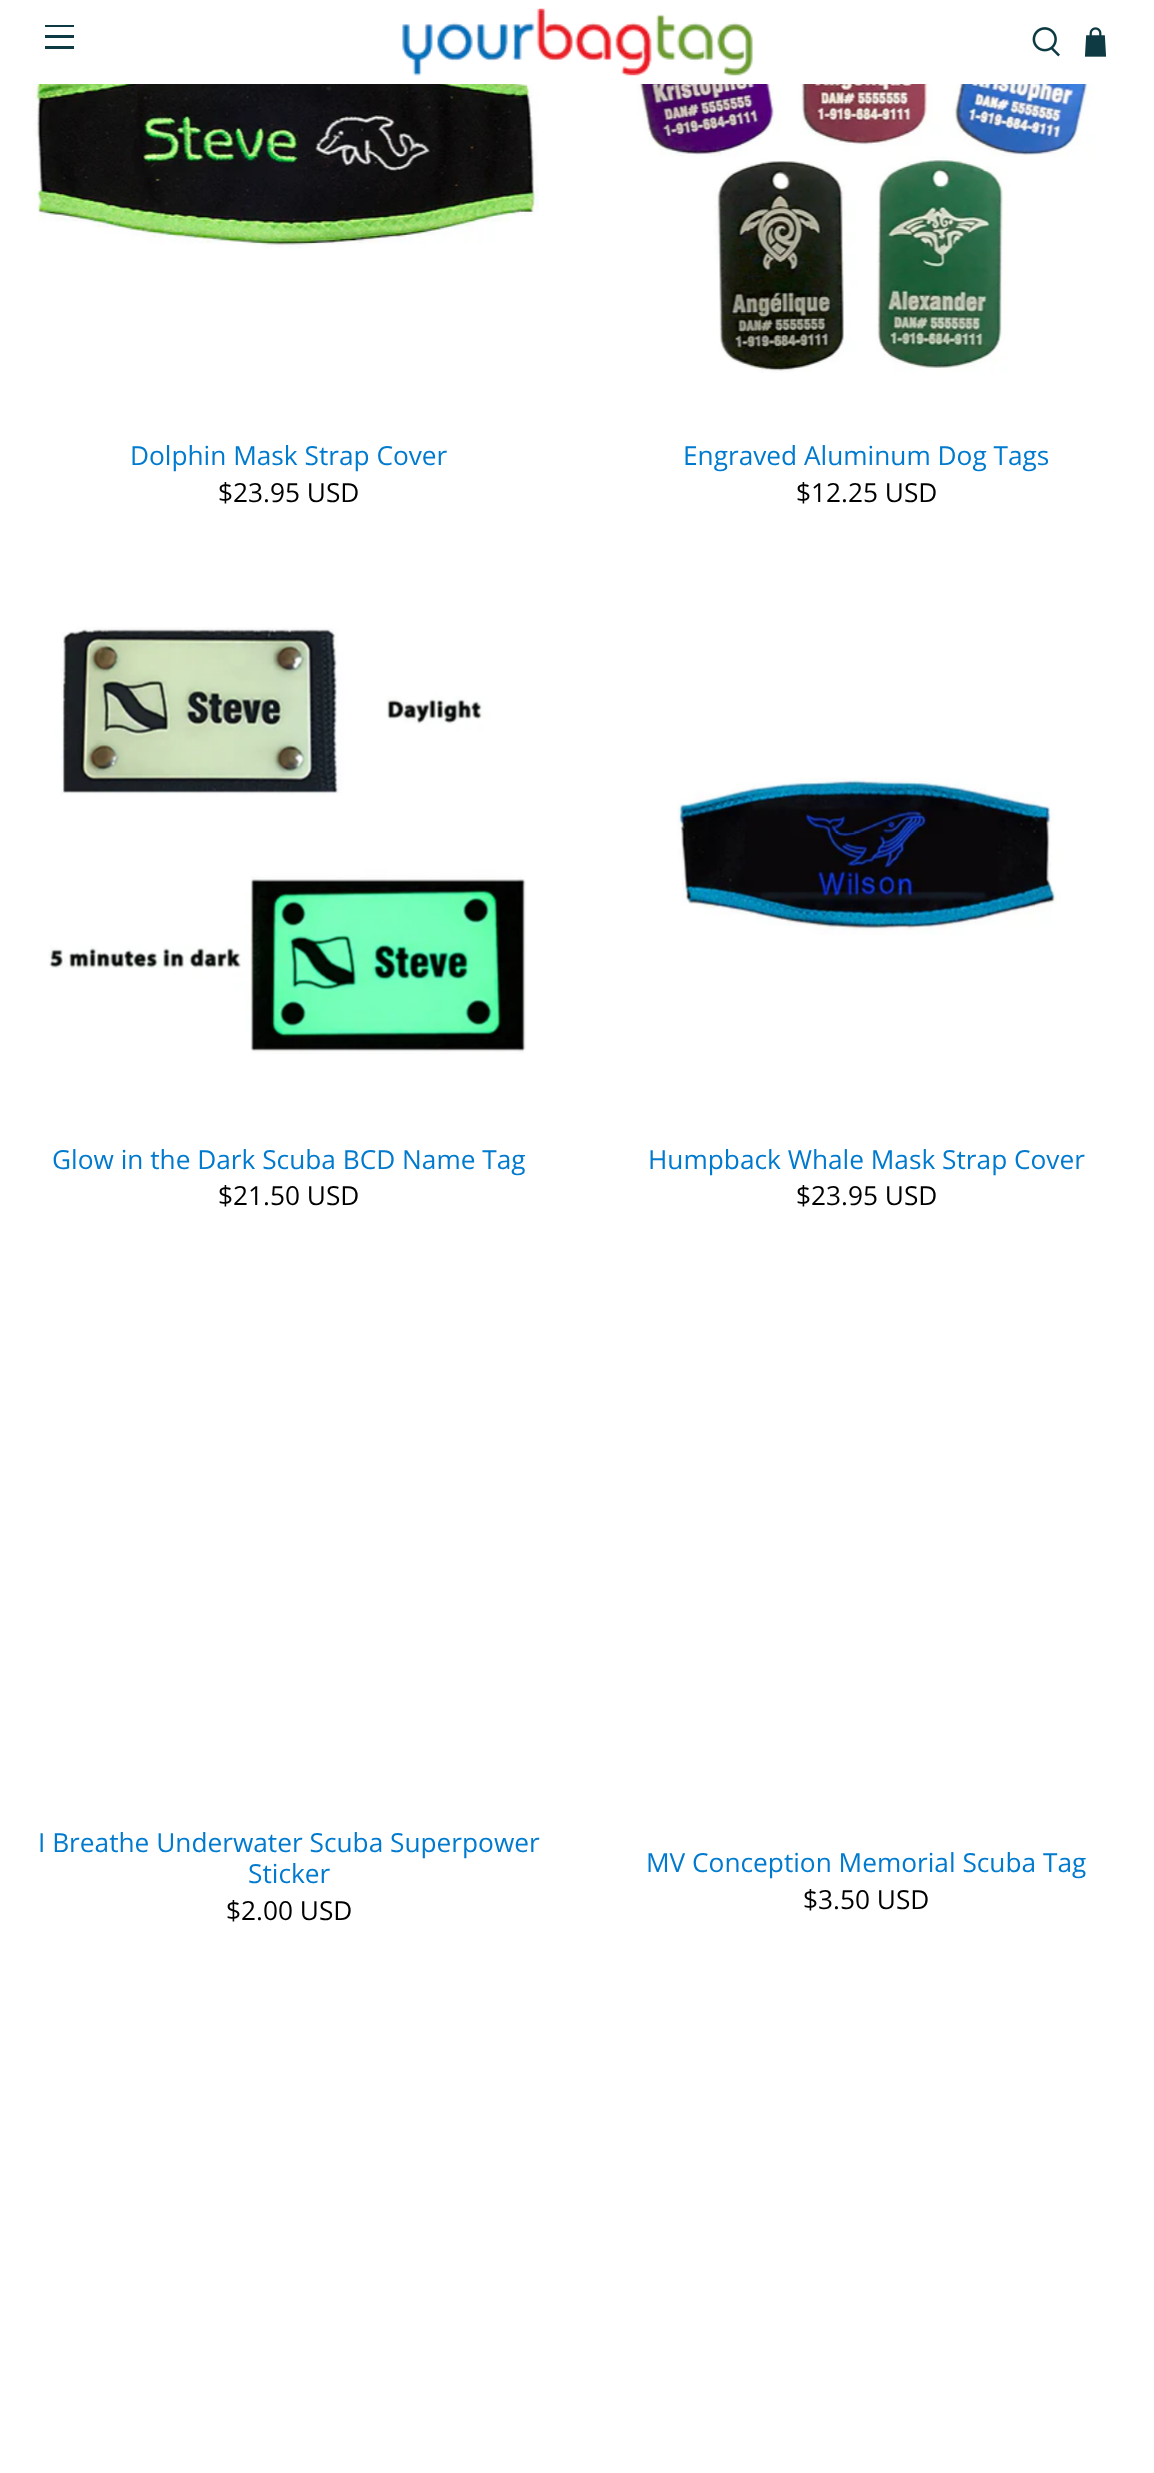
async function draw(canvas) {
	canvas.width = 1154;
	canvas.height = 2473;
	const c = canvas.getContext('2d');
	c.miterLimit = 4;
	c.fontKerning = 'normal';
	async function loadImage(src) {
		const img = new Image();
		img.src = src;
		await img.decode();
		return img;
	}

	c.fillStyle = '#fff';
	c.fillRect(0, 0, 1154, 2473);
	for (const [x, y, w, h, color] of [
		[45, 25, 29, 2, '#0e3b43'],
		[45, 35, 29, 3, '#0e3b43'],
		[45, 46, 29, 3, '#0e3b43'],
	]) {
		c.fillStyle = color;
		c.fillRect(x, y, w, h);
	}
	c.drawImage(await loadImage('img1.png'), 402, 8, 351, 68);
	c.drawImage(await loadImage('img2.png'), 1032, 27, 28, 30);
	c.drawImage(await loadImage('img3.png'), 1084, 27, 23, 30);
	c.drawImage(await loadImage('img4.png'), 31, 84, 508, 165);
	c.font = '26.25px Open Sans';
	c.fillStyle = '#007ace';
	c.fillText('Dolphin Mask Strap Cover', 130, 465);
	c.fillStyle = '#000';
	c.fillText('$23.95 USD', 218, 502);
	c.drawImage(await loadImage('img5.png'), 624, 84, 482, 289);
	c.fillStyle = '#007ace';
	c.fillText('Engraved Aluminum Dog Tags', 683, 465);
	c.fillStyle = '#000';
	c.fillText('$12.25 USD', 796, 502);
	c.drawImage(await loadImage('img6.png'), 48, 627, 478, 427);
	c.fillStyle = '#007ace';
	c.fillText('Glow in the Dark Scuba BCD Name Tag', 52, 1169);
	c.fillStyle = '#000';
	c.fillText('$21.50 USD', 218, 1205);
	c.drawImage(await loadImage('img7.png'), 677, 778, 384, 157);
	c.fillStyle = '#007ace';
	c.fillText('Humpback Whale Mask Strap Cover', 648, 1169);
	c.fillStyle = '#000';
	c.fillText('$23.95 USD', 796, 1205);
	c.fillStyle = '#007ace';
	c.fillText('I Breathe Underwater Scuba Superpower', 38, 1852);
	c.fillText('Sticker', 248, 1883);
	c.fillStyle = '#000';
	c.fillText('$2.00 USD', 226, 1920);
	c.fillStyle = '#007ace';
	c.fillText('MV Conception Memorial Scuba Tag', 646, 1872);
	c.fillStyle = '#000';
	c.fillText('$3.50 USD', 803, 1909);
}

draw(document.querySelector('canvas'));
